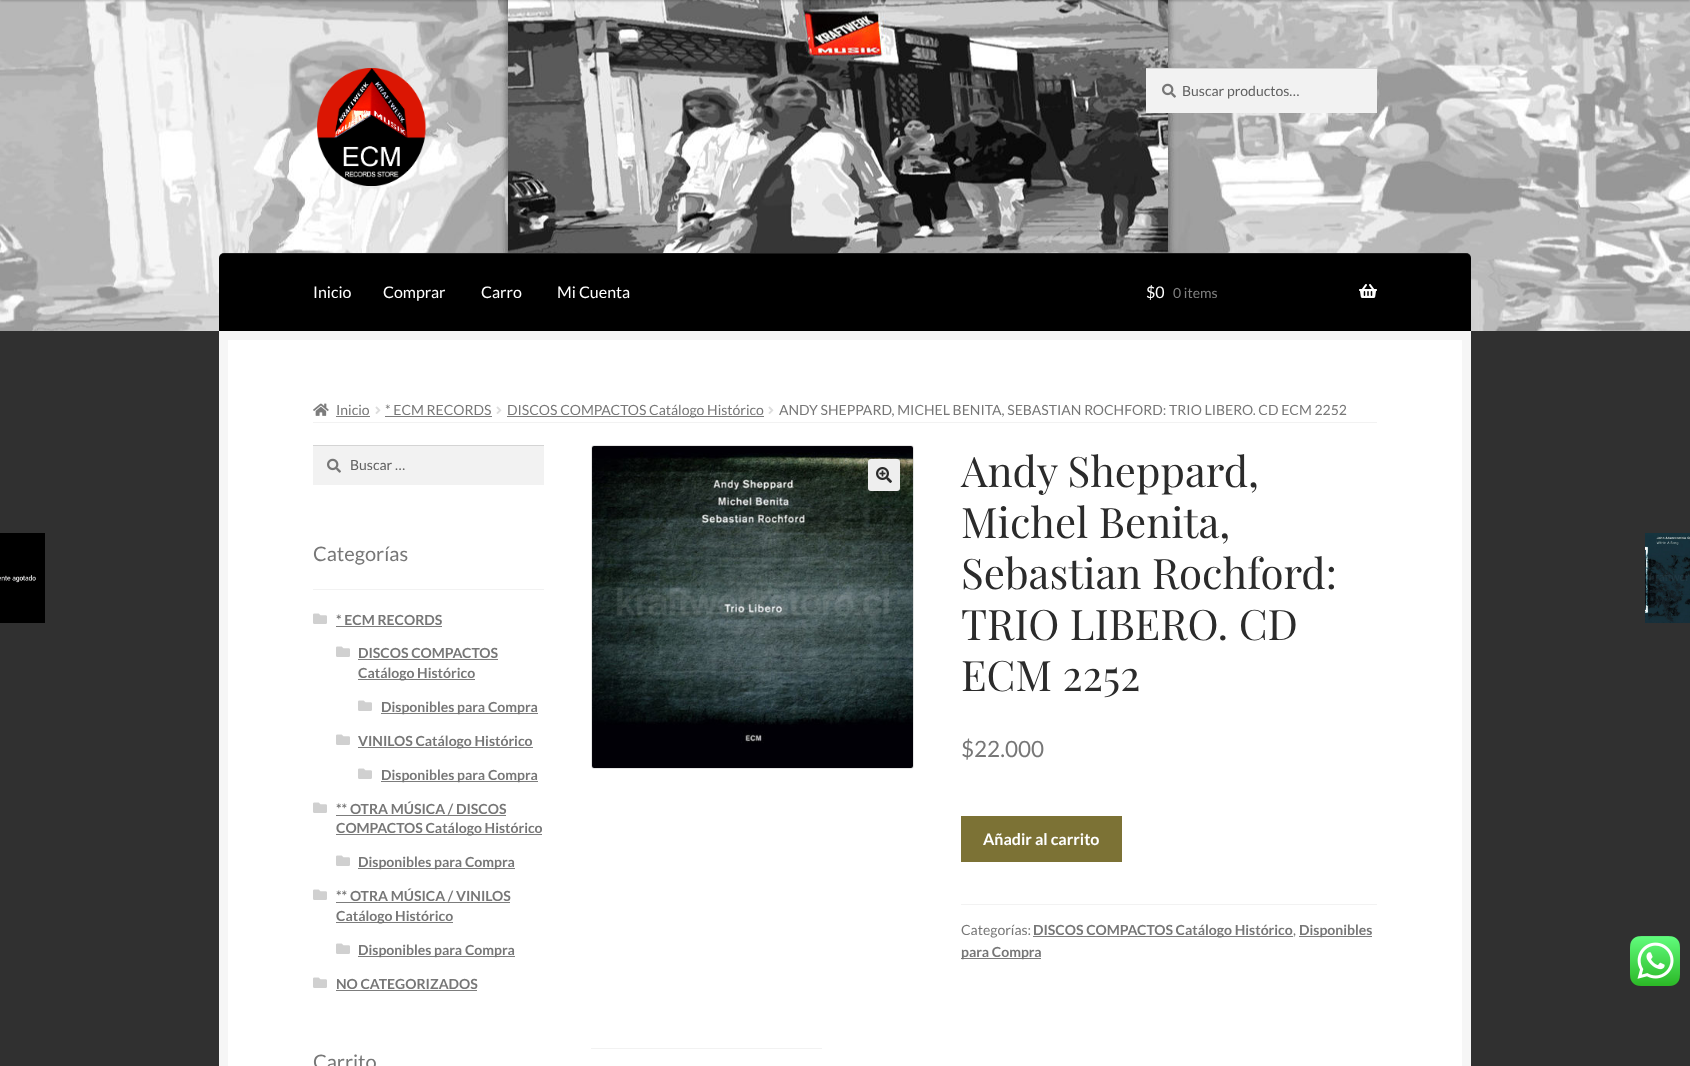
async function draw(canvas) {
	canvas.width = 1690;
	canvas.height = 1066;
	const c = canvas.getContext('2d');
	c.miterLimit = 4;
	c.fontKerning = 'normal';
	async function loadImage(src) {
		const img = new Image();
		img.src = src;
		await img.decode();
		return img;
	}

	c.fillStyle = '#303030';
	c.fillRect(0, 0, 1690, 1066);
	c.drawImage(await loadImage('img1.png'), 0, 0, 1690, 331);
	c.fillStyle = '#00000033';
	c.filter = 'blur(1px)';
	c.beginPath();
	c.rect(0, -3, 1690, 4);
	c.fill();
	c.filter = 'none';
	c.drawImage(await loadImage('img2.png'), 317, 68, 110, 118);
	c.fillStyle = '#f2f2f2';
	c.fillRect(1146, 69, 231, 44);
	c.drawImage(await loadImage('img3.png'), 1162, 83, 14, 15);
	c.fillStyle = '#d4d4d4';
	c.fillRect(1146, 68, 231, 1);
	c.font = '14px Lato';
	c.fillStyle = '#616161';
	c.fillText('Buscar productos…', 1182, 96);
	c.fillStyle = '#000';
	c.beginPath();
	c.roundRect(219, 253, 1252, 78, [5, 5, 0, 0]);
	c.fill();
	c.fillStyle = '#ffffff1a';
	c.beginPath();
	c.moveTo(224, 254);
	c.lineTo(1466, 254);
	c.bezierCurveTo(1469, 254, 1471, 256, 1471, 259);
	c.bezierCurveTo(1471, 256, 1469, 253, 1466, 253);
	c.lineTo(224, 253);
	c.bezierCurveTo(221, 253, 219, 256, 219, 259);
	c.bezierCurveTo(219, 256, 221, 254, 224, 254);
	c.closePath();
	c.fill();
	c.font = '16px Lato';
	c.fillStyle = '#fff';
	for (const [text, x, y] of [
		['Inicio', 313, 298],
		['Comprar', 383, 298],
		['Carro', 481, 298],
		['Mi Cuenta', 557, 298],
		['$0', 1146, 298],
	]) {
		c.fillText(text, x, y);
	}
	c.font = '14px Lato';
	c.fillStyle = '#808080';
	c.fillText('0 items', 1173, 298);
	c.drawImage(await loadImage('img4.png'), 1359, 284, 18, 14);
	c.fillStyle = '#fff';
	c.beginPath();
	c.rect(223.5, 335.5, 1243, 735);
	c.fill();
	c.strokeStyle = '#f6f6f6';
	c.lineWidth = 9;
	c.stroke();
	c.fillStyle = '#f2f2f2';
	c.fillRect(313, 422, 1064, 1);
	c.drawImage(await loadImage('img5.png'), 313, 403, 16, 13);
	c.fillStyle = '#777';
	c.fillText('Inicio', 336, 415);
	c.fillStyle = '#7c7c7c';
	c.fillRect(336, 416, 34, 1);
	c.drawImage(await loadImage('img6.png'), 375, 406, 6, 8);
	c.fillStyle = '#777';
	c.fillText('* ECM RECORDS', 385, 415);
	c.fillStyle = '#7c7c7c';
	c.fillRect(385, 416, 107, 1);
	c.drawImage(await loadImage('img6.png'), 496, 406, 6, 8);
	c.fillRect(507, 416, 257, 1);
	c.fillStyle = '#777';
	c.fillText('DISCOS COMPACTOS Catálogo Histórico', 507, 415);
	c.drawImage(await loadImage('img6.png'), 768, 406, 6, 8);
	c.fillText('ANDY SHEPPARD, MICHEL BENITA, SEBASTIAN ROCHFORD: TRIO LIBERO. CD ECM 2252', 779, 415);
	c.fillStyle = '#f2f2f2';
	c.fillRect(313, 446, 231, 39);
	c.drawImage(await loadImage('img3.png'), 327, 458, 14, 15);
	c.fillStyle = '#d4d4d4';
	c.fillRect(313, 445, 231, 1);
	c.fillStyle = '#616161';
	c.fillText('Buscar …', 350, 470);
	c.fillStyle = '#f2f2f2';
	c.fillRect(313, 589, 231, 1);
	c.font = '20px Lato';
	c.fillStyle = '#777';
	c.fillText('Categorías', 313, 561);
	c.drawImage(await loadImage('img7.png'), 313, 613, 14, 11);
	c.font = 'bold 14px Lato';
	c.fillText('* ECM RECORDS', 336, 625);
	c.fillStyle = '#7c7c7c';
	c.fillRect(336, 626, 106, 1);
	c.drawImage(await loadImage('img7.png'), 336, 646, 14, 11);
	c.fillStyle = '#777';
	c.fillText('DISCOS COMPACTOS', 358, 658);
	c.fillStyle = '#7c7c7c';
	c.fillRect(358, 659, 140, 1);
	c.fillRect(358, 679, 117, 1);
	c.fillStyle = '#777';
	c.fillText('Catálogo Histórico', 358, 678);
	c.drawImage(await loadImage('img7.png'), 358, 700, 14, 11);
	c.fillStyle = '#7c7c7c';
	c.fillRect(381, 713, 157, 1);
	c.fillStyle = '#777';
	c.fillText('Disponibles para Compra', 381, 712);
	c.drawImage(await loadImage('img7.png'), 336, 734, 14, 11);
	c.fillStyle = '#7c7c7c';
	c.fillRect(358, 747, 175, 1);
	c.fillStyle = '#777';
	c.fillText('VINILOS Catálogo Histórico', 358, 746);
	c.drawImage(await loadImage('img7.png'), 358, 768, 14, 11);
	c.fillStyle = '#7c7c7c';
	c.fillRect(381, 781, 157, 1);
	c.fillStyle = '#777';
	c.fillText('Disponibles para Compra', 381, 780);
	c.drawImage(await loadImage('img7.png'), 313, 802, 14, 11);
	c.fillText('** OTRA MÚSICA / DISCOS', 336, 814);
	c.fillStyle = '#7c7c7c';
	c.fillRect(336, 815, 170, 1);
	c.fillRect(336, 834, 206, 1);
	c.fillStyle = '#777';
	c.fillText('COMPACTOS Catálogo Histórico', 336, 833);
	c.drawImage(await loadImage('img7.png'), 336, 855, 14, 11);
	c.fillStyle = '#7c7c7c';
	c.fillRect(358, 868, 157, 1);
	c.fillStyle = '#777';
	c.fillText('Disponibles para Compra', 358, 867);
	c.drawImage(await loadImage('img7.png'), 313, 889, 14, 11);
	c.fillText('** OTRA MÚSICA / VINILOS', 336, 901);
	c.fillStyle = '#7c7c7c';
	c.fillRect(336, 902, 174, 1);
	c.fillRect(336, 922, 117, 1);
	c.fillStyle = '#777';
	c.fillText('Catálogo Histórico', 336, 921);
	c.drawImage(await loadImage('img7.png'), 336, 943, 14, 11);
	c.fillStyle = '#7c7c7c';
	c.fillRect(358, 956, 157, 1);
	c.fillStyle = '#777';
	c.fillText('Disponibles para Compra', 358, 955);
	c.drawImage(await loadImage('img7.png'), 313, 977, 14, 11);
	c.fillText('NO CATEGORIZADOS', 336, 989);
	c.fillStyle = '#7c7c7c';
	c.fillRect(336, 990, 141, 1);
	c.font = '20px Lato';
	c.fillStyle = '#777';
	c.fillText('Carrito', 313, 1069);
	c.beginPath();
	c.roundRect(591.5, 445.5, 322, 323, 2.5);
	c.strokeStyle = '#e6e6e6';
	c.lineWidth = 1;
	c.stroke();
	c.drawImage(await loadImage('img8.png'), 592, 446, 321, 322);
	c.fillStyle = '#eee';
	c.beginPath();
	c.roundRect(868, 459, 32, 32, 3);
	c.fill();
	c.drawImage(await loadImage('img9.png'), 876, 467, 16, 16);
	c.font = '42px Playfair Display';
	c.fillStyle = '#2b2b2b';
	for (const [text, x, y] of [
		['Andy Sheppard,', 961, 487],
		['Michel Benita,', 961, 538],
		['Sebastian Rochford:', 961, 589],
		['TRIO LIBERO. CD', 961, 640],
		['ECM 2252', 961, 691],
	]) {
		c.fillText(text, x, y);
	}
	c.font = '22.5px Lato';
	c.fillStyle = '#777';
	c.fillText('$22.000', 961, 757);
	c.fillStyle = '#7c7235';
	c.fillRect(961, 816, 161, 46);
	c.font = 'bold 16px Lato';
	c.fillStyle = '#fff';
	c.fillText('Añadir al carrito', 983, 845);
	c.fillStyle = '#f2f2f2';
	c.fillRect(961, 904, 416, 1);
	c.font = '14px Lato';
	c.fillStyle = '#777';
	c.fillText('Categorías:', 961, 935);
	c.fillStyle = '#7c7c7c';
	c.fillRect(1033, 936, 260, 1);
	c.font = 'bold 14px Lato';
	c.fillStyle = '#777';
	c.fillText('DISCOS COMPACTOS Catálogo Histórico', 1033, 935);
	c.font = '14px Lato';
	c.fillText(',', 1293, 935);
	c.fillStyle = '#7c7c7c';
	c.fillRect(1299, 936, 73, 1);
	c.font = 'bold 14px Lato';
	c.fillStyle = '#777';
	c.fillText('Disponibles', 1299, 935);
	c.fillStyle = '#7c7c7c';
	c.fillRect(961, 958, 80, 1);
	c.fillStyle = '#777';
	c.fillText('para Compra', 961, 957);
	c.drawImage(await loadImage('img10.png'), 0, 533, 45, 90);
	c.drawImage(await loadImage('img11.png'), 1645, 533, 45, 90);
	c.fillStyle = '#f2f2f2';
	c.fillRect(591, 1048, 231, 1);
	c.drawImage(await loadImage('img12.png'), 1630, 936, 50, 50);
}

draw(document.querySelector('canvas'));
